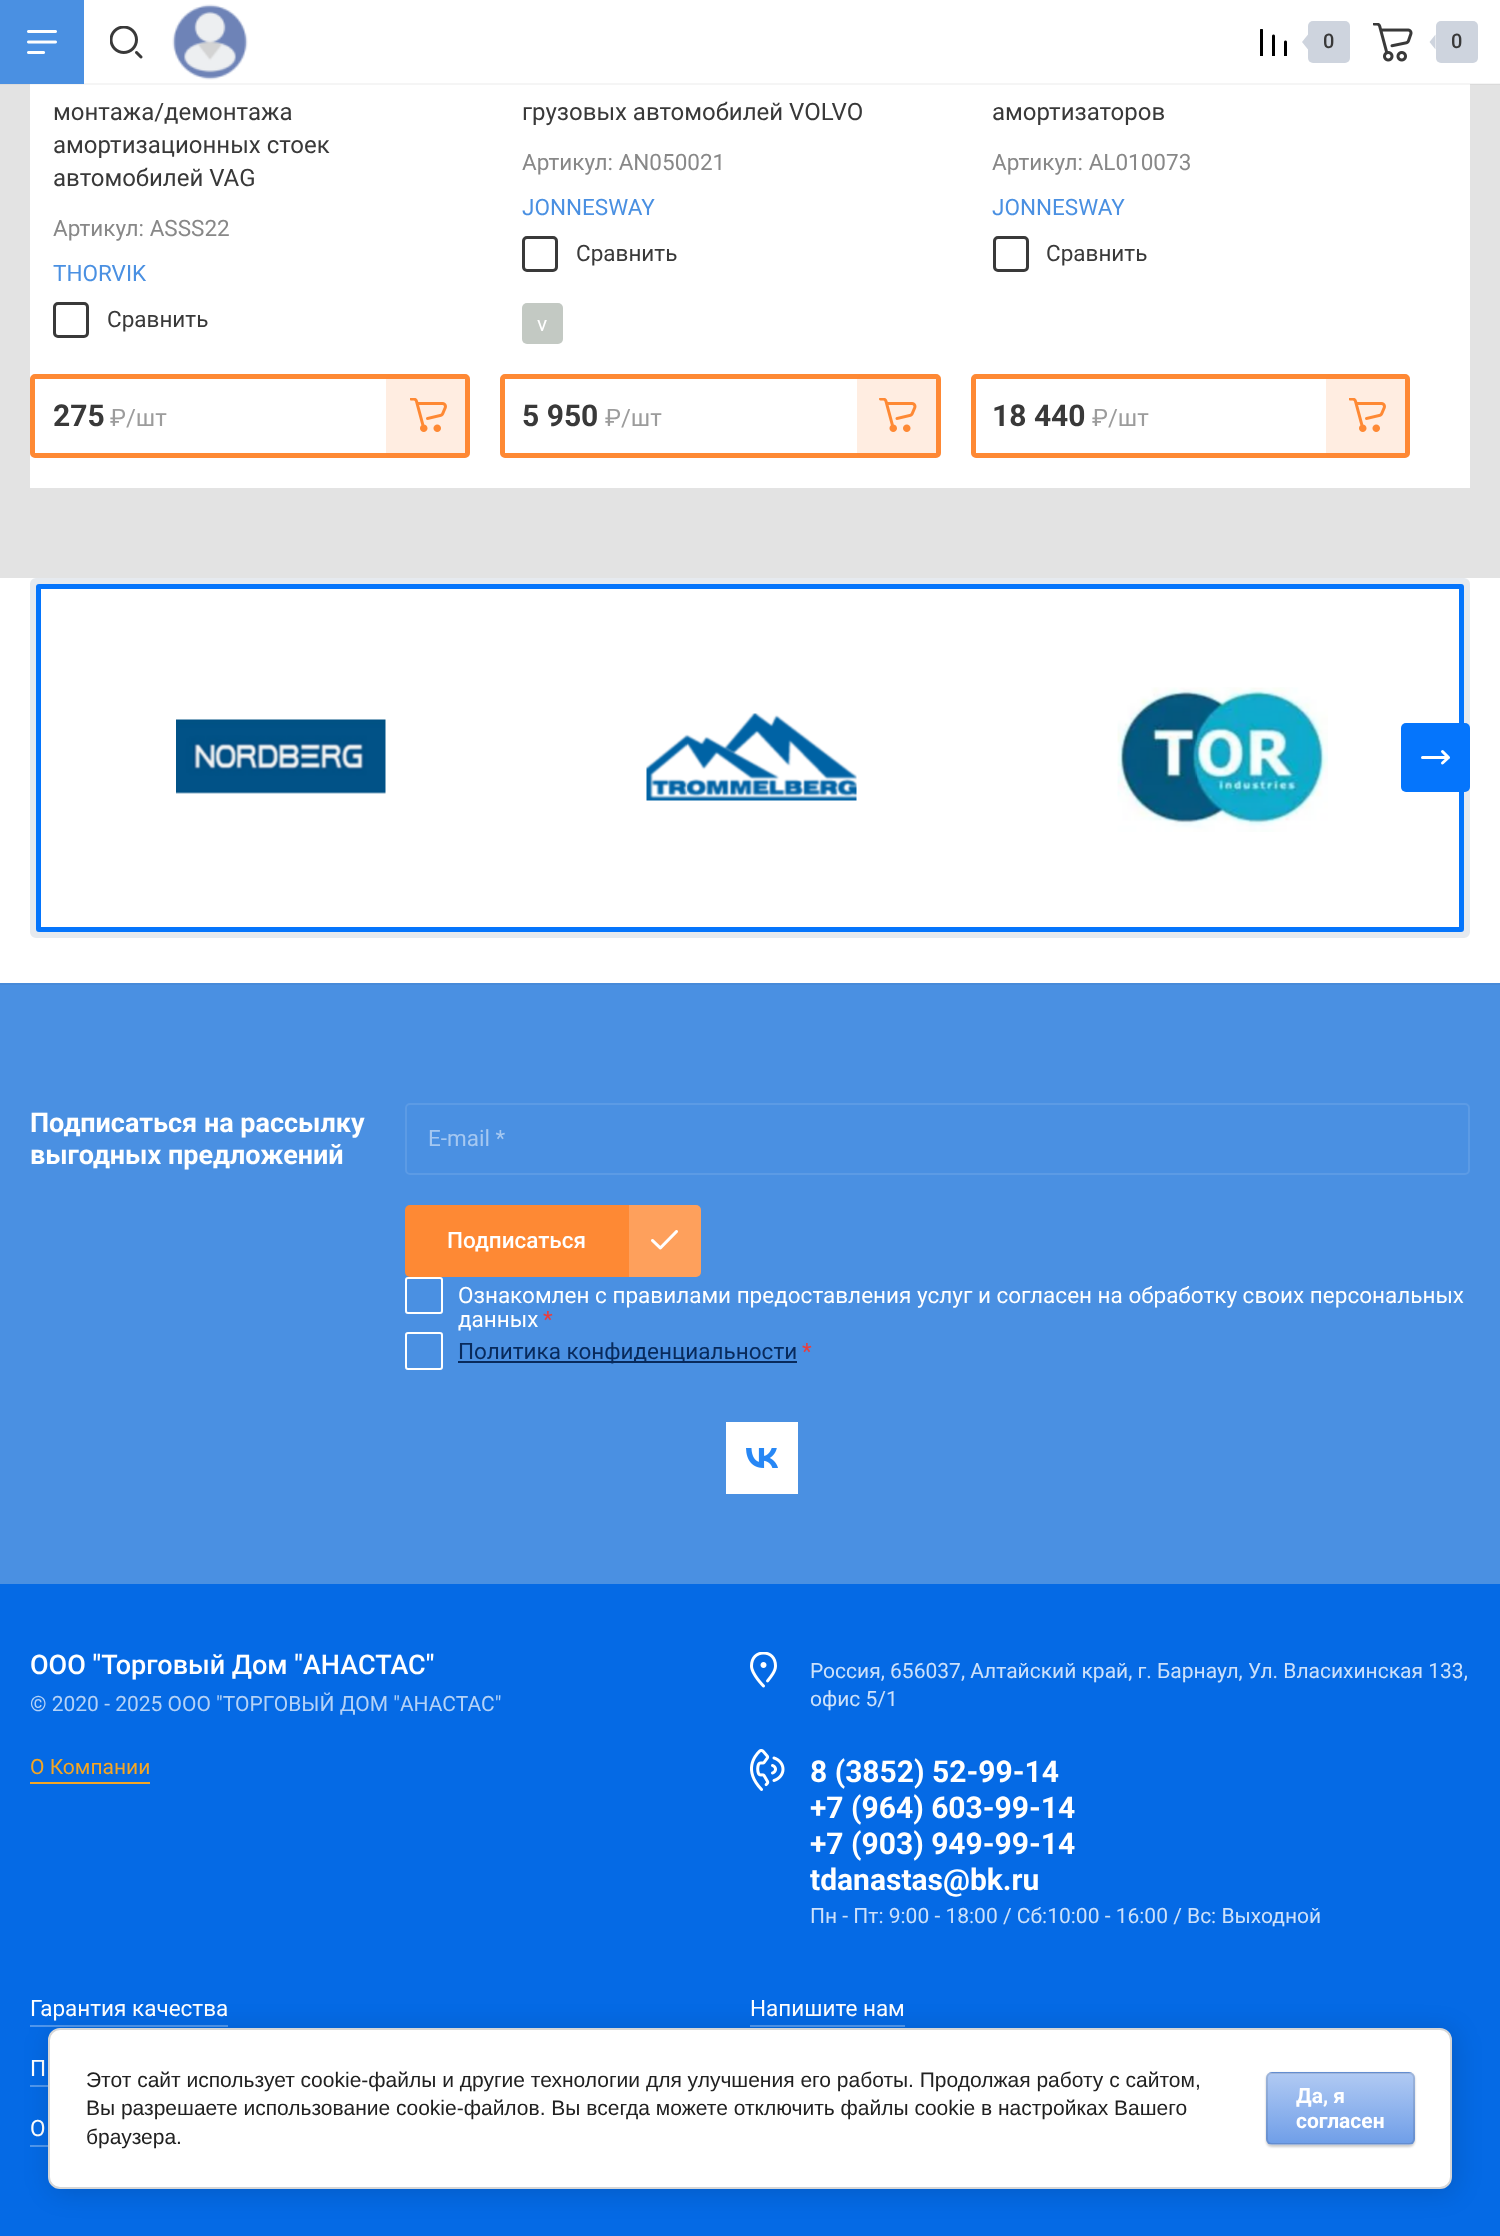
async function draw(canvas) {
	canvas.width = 1500;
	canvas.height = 2236;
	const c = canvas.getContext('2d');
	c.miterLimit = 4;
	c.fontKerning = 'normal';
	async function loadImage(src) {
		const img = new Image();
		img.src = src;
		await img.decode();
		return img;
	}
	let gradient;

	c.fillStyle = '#e3e3e3';
	c.fillRect(0, 0, 1500, 2236);
	for (const [x, y, w, h, color] of [
		[84, 0, 1416, 84, '#fff'],
		[30, 84, 1440, 404, '#fff'],
		[0, 83, 1500, 2, '#0000000a'],
		[0, 0, 84, 84, '#4a90e2'],
	]) {
		c.fillStyle = color;
		c.fillRect(x, y, w, h);
	}
	c.drawImage(await loadImage('img1.png'), 27, 30, 30, 24);
	c.drawImage(await loadImage('img2.png'), 110, 26, 33, 33);
	c.drawImage(await loadImage('img3.png'), 172, 4, 76, 76);
	c.drawImage(await loadImage('img4.png'), 1260, 29, 27, 27);
	c.fillStyle = '#ced4de';
	c.beginPath();
	c.roundRect(1308, 21, 42, 42, 5);
	c.fill();
	c.beginPath();
	c.moveTo(1308, 34.5);
	c.lineTo(1308, 49.5);
	c.lineTo(1302, 42);
	c.closePath();
	c.fill();
	c.font = '500 20px Roboto';
	c.fillStyle = '#393939';
	c.fillText('0', 1323, 48);
	c.drawImage(await loadImage('img5.png'), 1373, 23, 40, 39);
	c.fillStyle = '#ced4de';
	c.beginPath();
	c.roundRect(1436, 21, 42, 42, 5);
	c.fill();
	c.beginPath();
	c.moveTo(1435.5, 34.5);
	c.lineTo(1435.5, 49.5);
	c.lineTo(1429.5, 42);
	c.closePath();
	c.fill();
	c.fillStyle = '#393939';
	c.fillText('0', 1451, 48);
	c.font = '24px Roboto';
	for (const [text, x, y] of [
		['монтажа/демонтажа', 53, 120],
		['амортизационных стоек', 53, 153],
		['автомобилей VAG', 53, 186],
	]) {
		c.fillText(text, x, y);
	}
	c.font = '22.5px Roboto';
	c.fillStyle = '#888';
	c.fillText('Артикул: ASSS22', 53, 236);
	c.fillStyle = '#4a90e2';
	c.fillText('THORVIK', 53, 281);
	c.beginPath();
	c.roundRect(54.5, 303.5, 33, 33, 3.5);
	c.strokeStyle = '#393939';
	c.lineWidth = 3;
	c.stroke();
	c.fillStyle = '#393939';
	c.fillText('Сравнить', 107, 327);
	c.beginPath();
	c.roundRect(32.5, 376.5, 435, 79, 2.5);
	c.strokeStyle = '#fe8934';
	c.lineWidth = 5;
	c.stroke();
	c.font = 'bold 30px Roboto';
	c.fillText('275', 53, 426);
	c.font = '24px Roboto';
	c.fillStyle = '#9c9c9c';
	c.fillText('₽/шт', 110, 426);
	c.fillStyle = '#fe893426';
	c.beginPath();
	c.roundRect(386, 374, 84, 84, 5);
	c.fill();
	c.drawImage(await loadImage('img6.png'), 410, 398, 37, 34);
	c.fillStyle = '#393939';
	c.fillText('грузовых автомобилей VOLVO', 522, 120);
	c.font = '22.5px Roboto';
	c.fillStyle = '#888';
	c.fillText('Артикул: AN050021', 522, 170);
	c.fillStyle = '#4a90e2';
	c.fillText('JONNESWAY', 522, 215);
	c.beginPath();
	c.roundRect(523.5, 237.5, 33, 33, 3.5);
	c.strokeStyle = '#393939';
	c.lineWidth = 3;
	c.stroke();
	c.fillStyle = '#393939';
	c.fillText('Сравнить', 576, 261);
	c.fillStyle = '#c3c9c3';
	c.beginPath();
	c.roundRect(522, 303, 41, 41, 5);
	c.fill();
	c.font = '21px Roboto';
	c.fillStyle = '#fff';
	c.fillText('v', 537, 331);
	c.beginPath();
	c.roundRect(502.5, 376.5, 436, 79, 2.5);
	c.strokeStyle = '#fe8934';
	c.lineWidth = 5;
	c.stroke();
	c.font = 'bold 30px Roboto';
	c.fillStyle = '#393939';
	c.fillText('5 950', 522, 426);
	c.font = '24px Roboto';
	c.fillStyle = '#9c9c9c';
	c.fillText('₽/шт', 605, 426);
	c.fillStyle = '#fe893426';
	c.beginPath();
	c.roundRect(857, 374, 84, 84, 5);
	c.fill();
	c.drawImage(await loadImage('img7.png'), 879, 398, 38, 34);
	c.fillStyle = '#393939';
	c.fillText('амортизаторов', 992, 120);
	c.font = '22.5px Roboto';
	c.fillStyle = '#888';
	c.fillText('Артикул: AL010073', 992, 170);
	c.fillStyle = '#4a90e2';
	c.fillText('JONNESWAY', 992, 215);
	c.beginPath();
	c.roundRect(994.5, 237.5, 33, 33, 3.5);
	c.strokeStyle = '#393939';
	c.lineWidth = 3;
	c.stroke();
	c.fillStyle = '#393939';
	c.fillText('Сравнить', 1046, 261);
	c.beginPath();
	c.roundRect(973.5, 376.5, 434, 79, 2.5);
	c.strokeStyle = '#fe8934';
	c.lineWidth = 5;
	c.stroke();
	c.font = 'bold 30px Roboto';
	c.fillText('18 440', 992, 426);
	c.font = '24px Roboto';
	c.fillStyle = '#9c9c9c';
	c.fillText('₽/шт', 1092, 426);
	c.fillStyle = '#fe893426';
	c.beginPath();
	c.roundRect(1326, 374, 84, 84, 5);
	c.fill();
	c.drawImage(await loadImage('img6.png'), 1349, 398, 37, 34);
	c.fillStyle = '#fff';
	c.fillRect(0, 578, 1500, 405);
	c.beginPath();
	c.roundRect(34, 582, 1432, 352, 2);
	c.strokeStyle = '#e6eaef';
	c.lineWidth = 8;
	c.stroke();
	c.drawImage(await loadImage('img8.png'), 176, 719, 210, 75);
	c.drawImage(await loadImage('img9.png'), 646, 713, 211, 88);
	c.drawImage(await loadImage('img10.png'), 1117, 687, 211, 145);
	c.beginPath();
	c.roundRect(38.5, 586.5, 1423, 343, 0.5);
	c.strokeStyle = '#0575fc';
	c.lineWidth = 5;
	c.stroke();
	c.fillStyle = '#0575fc';
	c.beginPath();
	c.roundRect(1401, 723, 69, 69, 5);
	c.fill();
	c.beginPath();
	c.moveTo(1442.5, 763);
	c.lineTo(1448.5, 757.5);
	c.moveTo(1448.5, 757.5);
	c.lineTo(1442.5, 751.5);
	c.moveTo(1448.5, 757.5);
	c.lineTo(1422.5, 757.5);
	c.strokeStyle = '#fff';
	c.lineWidth = 3;
	c.lineCap = 'round';
	c.stroke();
	c.fillStyle = '#4a90e2';
	c.fillRect(0, 985, 1500, 599);
	c.fillStyle = '#478ad9';
	c.fillRect(0, 983, 1500, 2);
	c.font = 'bold 27px Roboto';
	c.fillStyle = '#fff';
	c.fillText('Подписаться на рассылку', 30, 1132);
	c.fillText('выгодных предложений', 30, 1164);
	c.beginPath();
	c.roundRect(406, 1104, 1063, 70, 4);
	c.strokeStyle = '#5c9be5';
	c.lineWidth = 2;
	c.stroke();
	c.font = '22.5px Roboto';
	c.fillStyle = '#a5c8f1';
	c.fillText('E-mail *', 428, 1146);
	c.fillStyle = '#fe8934';
	c.beginPath();
	c.roundRect(405, 1205, 296, 72, 5);
	c.fill();
	c.font = '500 22.5px Roboto';
	c.fillStyle = '#fff';
	c.fillText('Подписаться', 447, 1248);
	c.fillStyle = '#ffffff33';
	c.beginPath();
	c.roundRect(629, 1205, 72, 72, [0, 5, 5, 0]);
	c.fill();
	c.drawImage(await loadImage('img11.png'), 651, 1230, 27, 20);
	c.beginPath();
	c.roundRect(406, 1278, 36, 35, 2);
	c.strokeStyle = '#fff';
	c.stroke();
	c.font = '22.5px Roboto';
	c.fillStyle = '#fff';
	c.fillText('Ознакомлен с правилами предоставления услуг и согласен на обработку своих персональных', 458, 1303);
	c.fillText('данных', 458, 1327);
	c.fillStyle = '#eb3c3c';
	c.fillText('*', 543, 1327);
	c.beginPath();
	c.roundRect(406, 1333, 36, 36, 2);
	c.stroke();
	c.fillStyle = '#082a5c';
	c.fillRect(458, 1361, 339, 2);
	c.fillText('Политика конфиденциальности', 458, 1359);
	c.fillStyle = '#eb3c3c';
	c.fillText('*', 802, 1359);
	c.drawImage(await loadImage('img12.png'), 726, 1422, 72, 72);
	c.fillStyle = '#056ae5';
	c.fillRect(0, 1584, 1500, 652);
	c.font = '500 27px Roboto';
	c.fillStyle = '#fff';
	c.fillText('ООО "Торговый Дом "АНАСТАС"', 30, 1674);
	c.font = '21px Roboto';
	c.fillStyle = '#b4d2f7';
	c.fillText('© 2020 - 2025 ООО "ТОРГОВЫЙ ДОМ "АНАСТАС"', 30, 1711);
	c.fillStyle = '#f5a623';
	c.fillText('О Компании', 30, 1774);
	c.fillRect(30, 1782, 120, 2);
	c.drawImage(await loadImage('img13.png'), 750, 1652, 27, 36);
	c.fillStyle = '#cde1fa';
	c.fillText('Россия, 656037, Алтайский край, г. Барнаул, Ул. Власихинская 133,', 810, 1678);
	c.fillText('офис 5/1', 810, 1706);
	c.drawImage(await loadImage('img14.png'), 750, 1749, 35, 42);
	c.font = 'bold 30px Roboto';
	c.fillStyle = '#fff';
	for (const [text, x, y] of [
		['8 (3852) 52-99-14', 810, 1782],
		['+7 (964) 603-99-14', 810, 1818],
		['+7 (903) 949-99-14', 810, 1854],
		['tdanastas@bk.ru', 810, 1890],
	]) {
		c.fillText(text, x, y);
	}
	c.font = '21px Roboto';
	c.fillStyle = '#cde1fa';
	c.fillText('Пн - Пт: 9:00 - 18:00 / Сб:10:00 - 16:00 / Вс: Выходной', 810, 1923);
	c.font = '22.5px Roboto';
	c.fillStyle = '#fff';
	c.fillText('Гарантия качества', 30, 2016);
	c.fillStyle = '#5097ed';
	c.fillRect(30, 2025, 198, 2);
	c.fillStyle = '#fff';
	c.fillText('Напишите нам', 750, 2016);
	c.fillStyle = '#5097ed';
	c.fillRect(750, 2025, 155, 2);
	c.fillStyle = '#fff';
	c.fillText('П', 30, 2076);
	c.fillStyle = '#5097ed';
	c.fillRect(30, 2085, 18, 2);
	c.fillStyle = '#fff';
	c.fillText('О', 30, 2136);
	c.fillStyle = '#5097ed';
	c.fillRect(30, 2145, 18, 2);
	c.fillStyle = '#00000024';
	c.filter = 'blur(13.5px)';
	c.beginPath();
	c.roundRect(51, 2031, 1404, 161, 12);
	c.fill();
	c.filter = 'none';
	c.fillStyle = '#fff';
	c.beginPath();
	c.roundRect(49, 2029, 1402, 159, 11);
	c.fill();
	c.strokeStyle = '#d6d6d6';
	c.stroke();
	c.font = '21px Liberation Sans';
	c.fillStyle = '#212121';
	for (const [text, x, y] of [
		['Этот сайт использует cookie-файлы и другие технологии для улучшения его работы. Продолжая работу с сайтом,', 86, 2087],
		['Вы разрешаете использование cookie-файлов. Вы всегда можете отключить файлы cookie в настройках Вашего', 86, 2115],
		['браузера.', 86, 2144],
	]) {
		c.fillText(text, x, y);
	}
	c.fillStyle = '#00000033';
	c.filter = 'blur(1px)';
	c.beginPath();
	c.roundRect(1266, 2073, 149, 74, 6);
	c.fill();
	c.filter = 'none';
	c.save();
	c.beginPath();
	c.roundRect(1266, 2072, 149, 73, 6);
	c.clip();
	gradient = c.createLinearGradient(1340, 2003, 1340, 2073);
	gradient.addColorStop(0, '#b1caf3');
	gradient.addColorStop(1, '#6f9ee8');
	c.fillStyle = gradient;
	c.fillRect(1266, 2072, 149, 1);
	gradient = c.createLinearGradient(1340, 2073, 1340, 2144);
	gradient.addColorStop(0, '#b1caf3');
	gradient.addColorStop(1, '#6f9ee8');
	c.fillStyle = gradient;
	c.fillRect(1266, 2073, 149, 71);
	gradient = c.createLinearGradient(1340, 2144, 1340, 2214);
	gradient.addColorStop(0, '#b1caf3');
	gradient.addColorStop(1, '#6f9ee8');
	c.fillStyle = gradient;
	c.fillRect(1266, 2144, 149, 1);
	c.restore();
	c.beginPath();
	c.roundRect(1267, 2073, 147, 71, 5);
	c.strokeStyle = '#0000001a';
	c.stroke();
	c.font = 'bold 21px Roboto';
	c.fillStyle = '#fff';
	c.fillText('Да, я', 1296, 2103);
	c.fillText('согласен', 1296, 2128);
}

draw(document.querySelector('canvas'));
